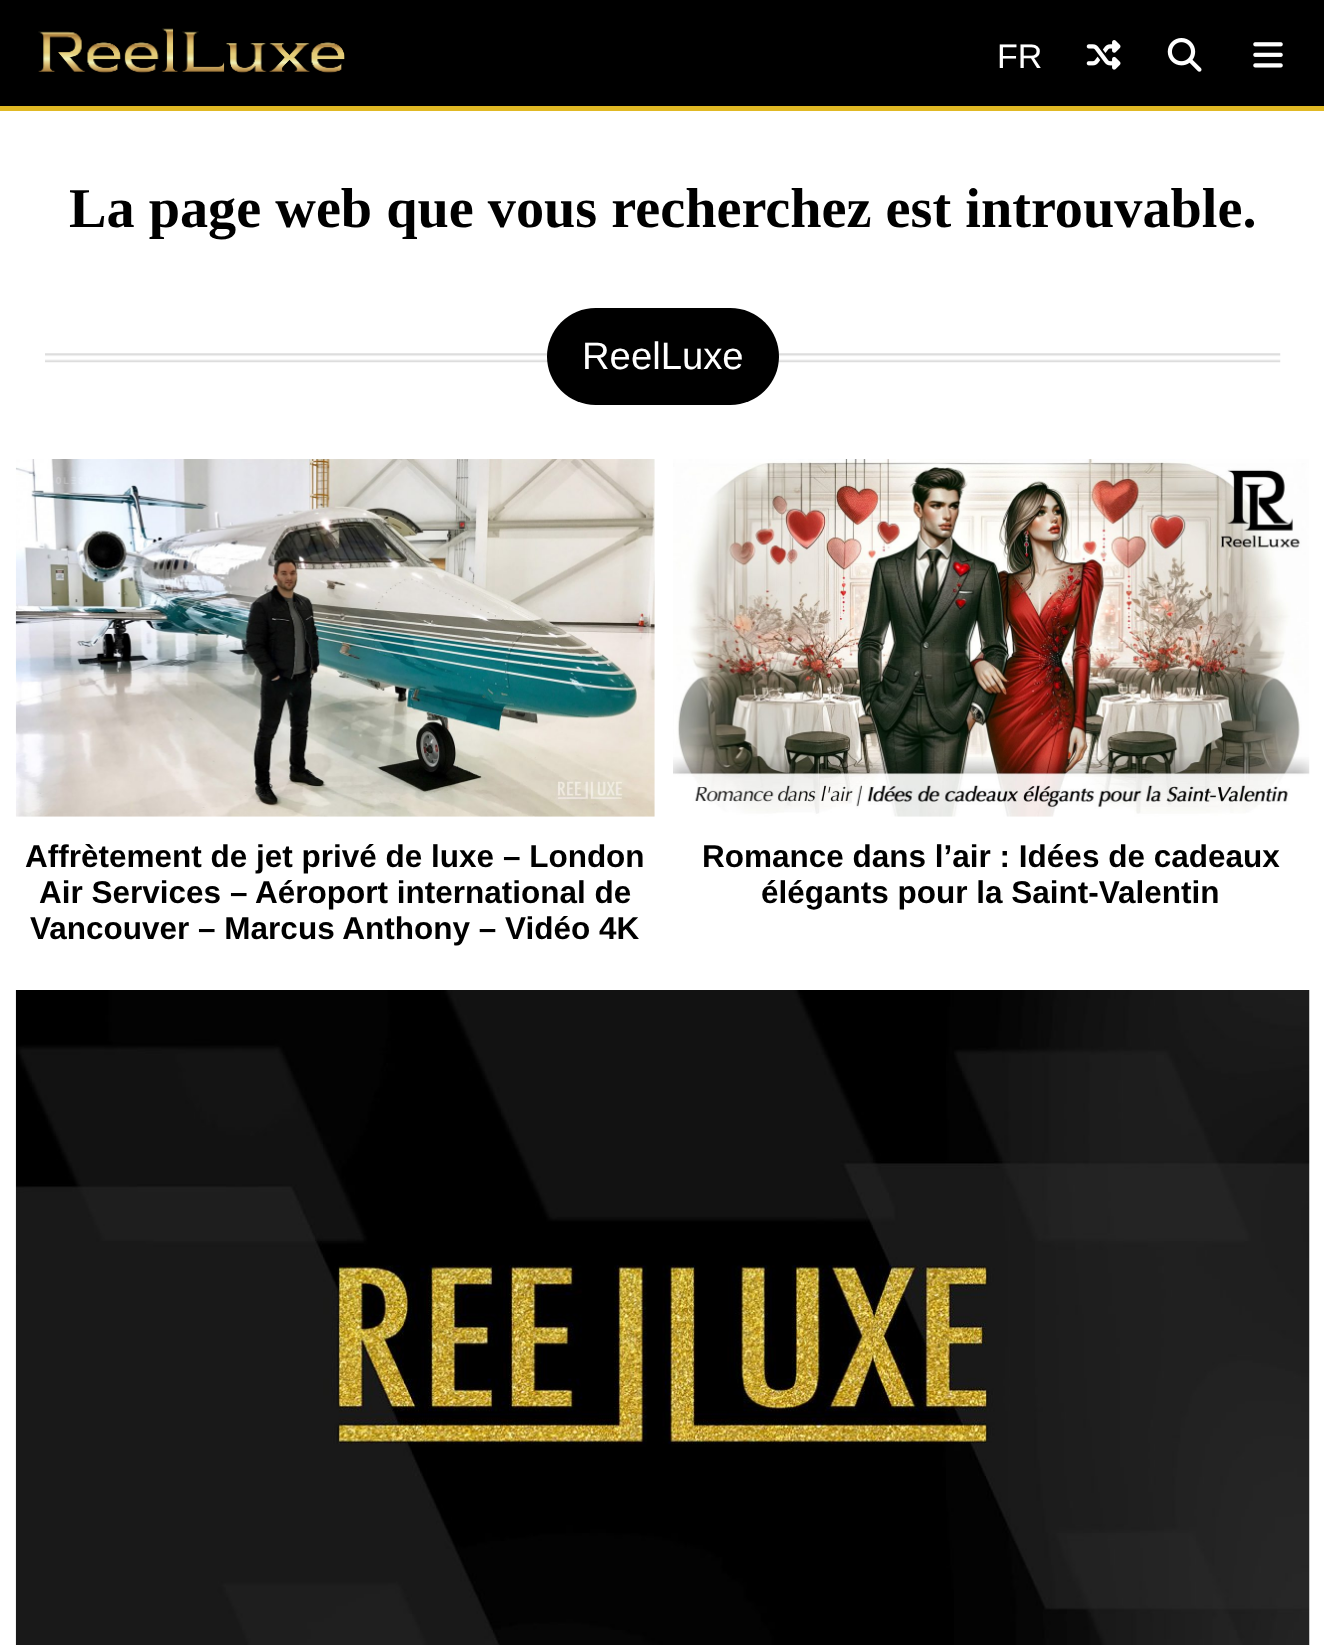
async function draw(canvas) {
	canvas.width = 1324;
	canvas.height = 1645;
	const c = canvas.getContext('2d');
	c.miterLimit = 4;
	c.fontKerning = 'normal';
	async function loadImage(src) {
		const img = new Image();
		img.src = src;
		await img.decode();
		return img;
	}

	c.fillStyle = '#000';
	c.fillRect(0, 0, 1324, 1645);
	c.fillStyle = '#fff';
	c.fillRect(0, 111, 1324, 1534);
	c.fillStyle = '#e1b924';
	c.fillRect(0, 106, 1324, 5);
	c.drawImage(await loadImage('img1.png'), 38, 28, 307, 45);
	c.font = '34px Liberation Sans';
	c.fillStyle = '#fff';
	c.fillText('FR', 997, 68);
	c.drawImage(await loadImage('img2.png'), 1086, 40, 35, 30);
	c.drawImage(await loadImage('img3.png'), 1167, 38, 35, 34);
	c.drawImage(await loadImage('img4.png'), 1253, 42, 30, 26);
	c.font = 'bold 56.25px Liberation Serif';
	c.fillStyle = '#000';
	c.fillText('La page web que vous recherchez est introuvable.', 69, 227);
	c.drawImage(await loadImage('img5.png'), 45, 353, 1236, 10);
	c.beginPath();
	c.roundRect(547, 308, 232, 97, 48.5);
	c.fill();
	c.font = '38.25px Liberation Sans';
	c.fillStyle = '#fff';
	c.fillText('ReelLuxe', 582, 369);
	c.drawImage(await loadImage('img6.png'), 15, 459, 640, 358);
	c.font = 'bold 31.5px Liberation Sans';
	c.fillStyle = '#000';
	for (const [text, x, y] of [
		['Affrètement de jet privé de luxe – London', 25, 867],
		['Air Services – Aéroport international de', 39, 903],
		['Vancouver – Marcus Anthony – Vidéo 4K', 30, 939],
	]) {
		c.fillText(text, x, y);
	}
	c.drawImage(await loadImage('img7.png'), 673, 459, 637, 358);
	c.fillText('Romance dans l’air : Idées de cadeaux', 702, 867);
	c.fillText('élégants pour la Saint-Valentin', 761, 903);
	c.drawImage(await loadImage('img8.png'), 15, 990, 1295, 655);
}

draw(document.querySelector('canvas'));
